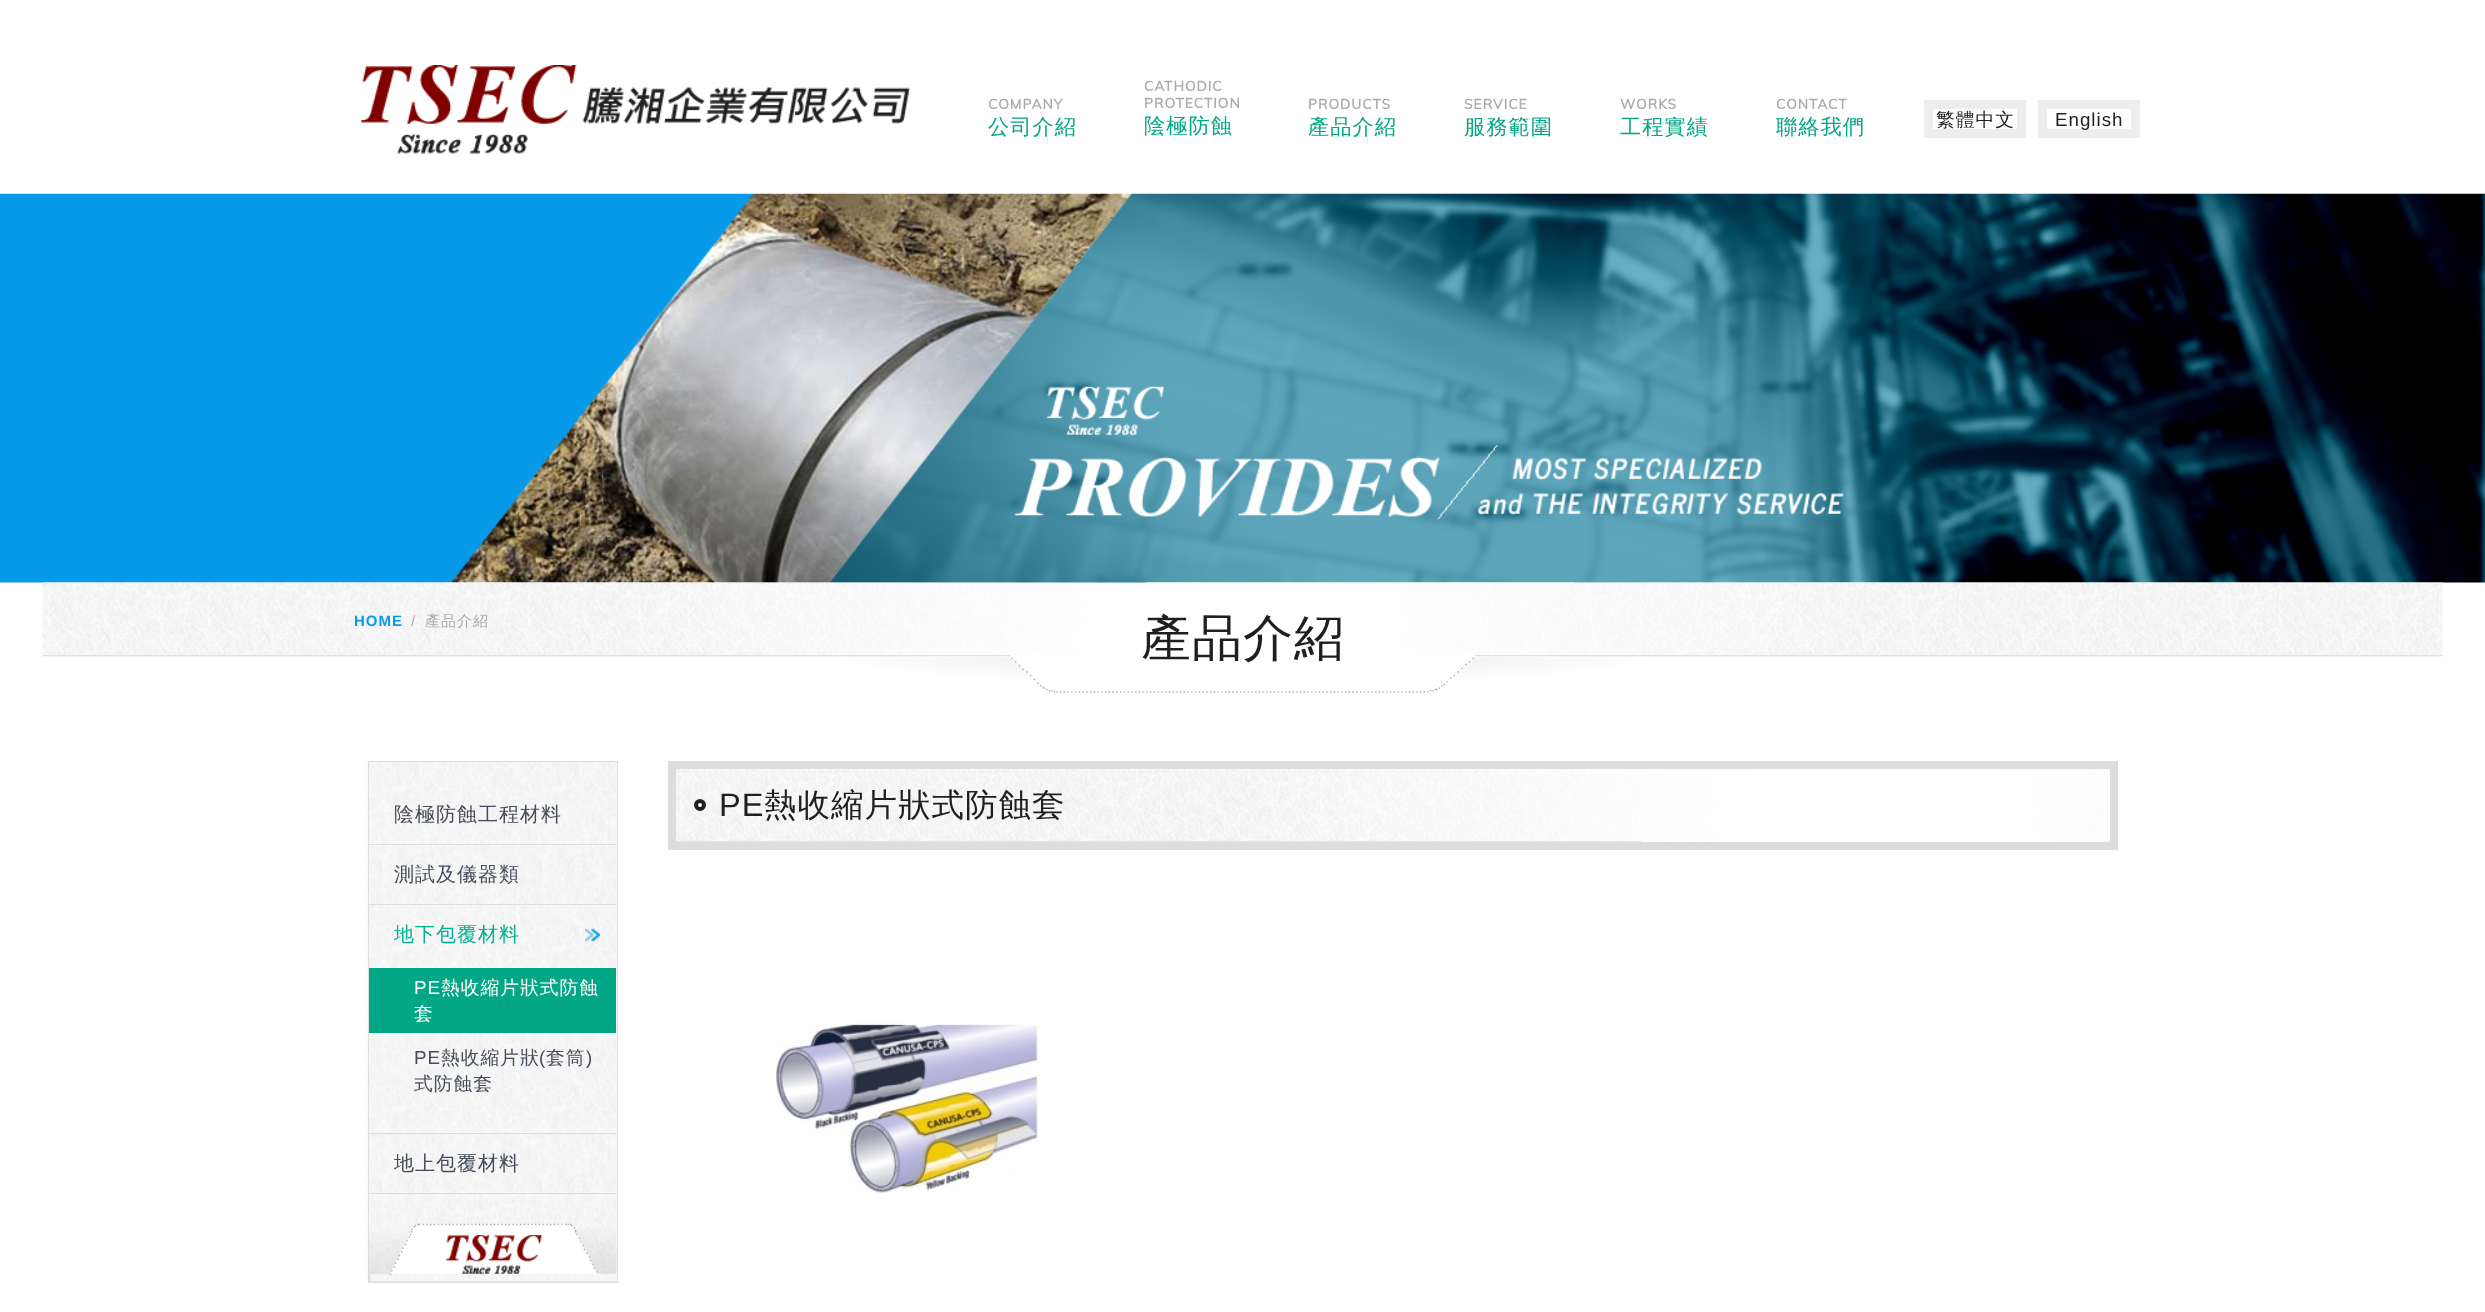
async function draw(canvas) {
	canvas.width = 2485;
	canvas.height = 1312;
	const c = canvas.getContext('2d');
	c.miterLimit = 4;
	c.fontKerning = 'normal';
	async function loadImage(src) {
		const img = new Image();
		img.src = src;
		await img.decode();
		return img;
	}

	c.fillStyle = '#fff';
	c.fillRect(0, 0, 2485, 1312);
	c.drawImage(await loadImage('img1.png'), 361, 65, 549, 89);
	c.letterSpacing = '1px';
	c.font = 'bold 13.75px Muli';
	c.fillStyle = '#aaa';
	c.fillText('COMPANY', 988, 109);
	c.font = '500 21.25px WenQuanYi Zen Hei';
	c.fillStyle = '#03a685';
	c.fillText('公司介紹', 988, 134);
	c.font = 'bold 13.75px Muli';
	c.fillStyle = '#aaa';
	c.fillText('CATHODIC', 1144, 91);
	c.fillText('PROTECTION', 1144, 108);
	c.font = '500 21.25px WenQuanYi Zen Hei';
	c.fillStyle = '#03a685';
	c.fillText('陰極防蝕', 1144, 133);
	c.font = 'bold 13.75px Muli';
	c.fillStyle = '#aaa';
	c.fillText('PRODUCTS', 1308, 109);
	c.font = '500 21.25px WenQuanYi Zen Hei';
	c.fillStyle = '#03a685';
	c.fillText('產品介紹', 1308, 134);
	c.font = 'bold 13.75px Muli';
	c.fillStyle = '#aaa';
	c.fillText('SERVICE', 1464, 109);
	c.font = '500 21.25px WenQuanYi Zen Hei';
	c.fillStyle = '#03a685';
	c.fillText('服務範圍', 1464, 134);
	c.font = 'bold 13.75px Muli';
	c.fillStyle = '#aaa';
	c.fillText('WORKS', 1620, 109);
	c.font = '500 21.25px WenQuanYi Zen Hei';
	c.fillStyle = '#03a685';
	c.fillText('工程實績', 1620, 134);
	c.font = 'bold 13.75px Muli';
	c.fillStyle = '#aaa';
	c.fillText('CONTACT', 1776, 109);
	c.font = '500 21.25px WenQuanYi Zen Hei';
	c.fillStyle = '#03a685';
	c.fillText('聯絡我們', 1776, 134);
	c.strokeStyle = '#ededed';
	c.lineWidth = 9;
	c.strokeRect(1928.5, 104.5, 93, 29);
	c.font = '500 18.75px WenQuanYi Zen Hei';
	c.fillStyle = '#1f1f1f';
	c.fillText('繁體中文', 1936, 126);
	c.strokeRect(2042.5, 104.5, 93, 29);
	c.font = '18.75px Liberation Sans';
	c.fillText('English', 2055, 126);
	c.drawImage(await loadImage('img2.png'), 0, 193, 2485, 390);
	c.drawImage(await loadImage('img3.png'), 42, 582, 2401, 111);
	c.font = 'bold 15px Liberation Sans';
	c.fillStyle = '#079ae9';
	c.fillText('HOME', 354, 626);
	c.font = '15px Liberation Sans';
	c.fillStyle = '#aaa';
	c.fillText('/', 411, 626);
	c.font = '500 15px WenQuanYi Zen Hei';
	c.fillText('產品介紹', 425, 626);
	c.font = '500 50px WenQuanYi Zen Hei';
	c.fillStyle = '#1f1f1f';
	c.fillText('產品介紹', 1141, 655);
	c.drawImage(await loadImage('img4.png'), 367, 761, 250, 522);
	c.strokeStyle = '#ddd';
	c.lineWidth = 1;
	c.strokeRect(368.5, 761.5, 249, 521);
	c.fillStyle = '#ddd';
	c.fillRect(369, 844, 247, 1);
	c.font = '500 20px WenQuanYi Zen Hei';
	c.fillStyle = '#454c59';
	c.fillText('陰極防蝕工程材料', 394, 821);
	c.fillStyle = '#ddd';
	c.fillRect(369, 904, 247, 1);
	c.fillStyle = '#454c59';
	c.fillText('測試及儀器類', 394, 881);
	c.fillStyle = '#ddd';
	c.fillRect(369, 1133, 247, 1);
	c.fillStyle = '#00b290';
	c.fillText('地下包覆材料', 394, 941);
	c.drawImage(await loadImage('img5.png'), 585, 928, 15, 14);
	c.fillStyle = '#03a685';
	c.fillRect(369, 968, 247, 65);
	c.font = '18.75px Liberation Sans';
	c.fillStyle = '#fff';
	c.fillText('PE', 414, 994);
	c.font = '500 18.75px WenQuanYi Zen Hei';
	c.fillText('熱收縮片狀式防蝕', 441, 994);
	c.fillText('套', 414, 1020);
	c.font = '18.75px Liberation Sans';
	c.fillStyle = '#454c59';
	c.fillText('PE', 414, 1064);
	c.font = '500 18.75px WenQuanYi Zen Hei';
	c.fillText('熱收縮片狀', 441, 1064);
	c.font = '18.75px Liberation Sans';
	c.fillText('(', 539, 1064);
	c.font = '500 18.75px WenQuanYi Zen Hei';
	c.fillText('套筒', 546, 1064);
	c.font = '18.75px Liberation Sans';
	c.fillText(')', 586, 1064);
	c.font = '500 18.75px WenQuanYi Zen Hei';
	c.fillText('式防蝕套', 414, 1090);
	c.fillStyle = '#ddd';
	c.fillRect(369, 1193, 247, 1);
	c.font = '500 20px WenQuanYi Zen Hei';
	c.fillStyle = '#454c59';
	c.fillText('地上包覆材料', 394, 1170);
	c.drawImage(await loadImage('img6.png'), 369, 1223, 248, 59);
	c.drawImage(await loadImage('img7.png'), 667, 768, 1443, 76);
	c.lineWidth = 8;
	c.strokeRect(672, 765, 1442, 81);
	c.fillStyle = '#fff';
	c.beginPath();
	c.arc(700, 805, 4, 0, 2 * Math.PI);
	c.fill();
	c.strokeStyle = '#202020';
	c.lineWidth = 4;
	c.stroke();
	c.font = '32.5px Liberation Sans';
	c.fillStyle = '#1f1f1f';
	c.fillText('PE', 719, 816);
	c.font = '500 32.5px WenQuanYi Zen Hei';
	c.fillText('熱收縮片狀式防蝕套', 764, 816);
	c.drawImage(await loadImage('img8.png'), 776, 1023, 262, 171);
}

draw(document.querySelector('canvas'));
